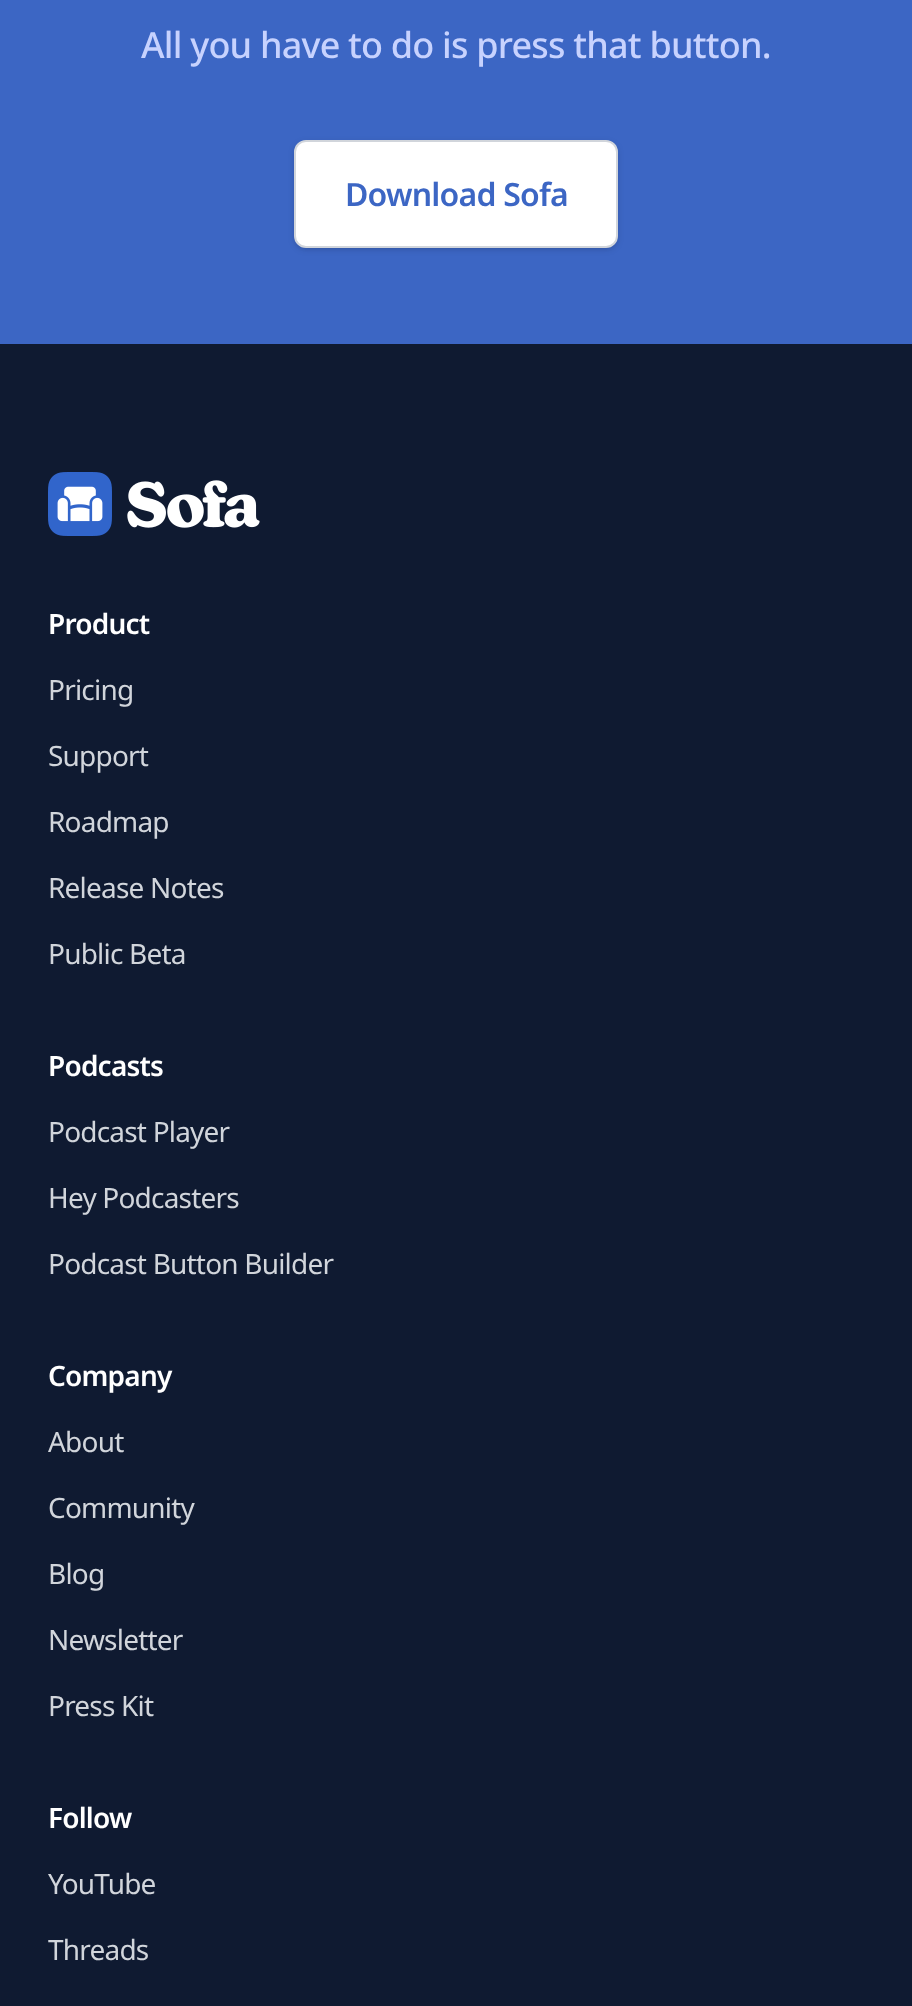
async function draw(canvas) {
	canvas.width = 912;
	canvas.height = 2006;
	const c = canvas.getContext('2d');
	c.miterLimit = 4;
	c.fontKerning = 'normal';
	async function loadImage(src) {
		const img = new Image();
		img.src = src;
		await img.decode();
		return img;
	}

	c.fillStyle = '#3c66c4';
	c.fillRect(0, 0, 912, 2006);
	c.letterSpacing = '-0.8px';
	c.font = '500 36px Noto Sans';
	c.fillStyle = '#c7d2fe';
	c.fillText('All you have to do is press that button.', 141, 58);
	c.fillStyle = '#0000001a';
	c.filter = 'blur(2px)';
	c.beginPath();
	c.roundRect(296, 144, 320, 104, 10);
	c.fill();
	c.filter = 'none';
	c.filter = 'blur(3px)';
	c.beginPath();
	c.roundRect(294, 142, 324, 108, 12);
	c.fill();
	c.filter = 'none';
	c.fillStyle = '#fff';
	c.beginPath();
	c.roundRect(295, 141, 322, 106, 11);
	c.fill();
	c.strokeStyle = '#d1d5db';
	c.lineWidth = 2;
	c.stroke();
	c.font = '600 32px Noto Sans';
	c.fillStyle = '#3c66c4';
	c.fillText('Download Sofa', 345, 206);
	c.fillStyle = '#0f1a31';
	c.fillRect(0, 344, 912, 1662);
	c.drawImage(await loadImage('img1.png'), 48, 472, 212, 64);
	c.font = '600 28px Noto Sans';
	c.fillStyle = '#fff';
	c.fillText('Product', 48, 634);
	c.font = '28px Noto Sans';
	c.fillStyle = '#d1d5db';
	for (const [text, x, y] of [
		['Pricing', 48, 700],
		['Support', 48, 766],
		['Roadmap', 48, 832],
		['Release Notes', 48, 898],
		['Public Beta', 48, 964],
	]) {
		c.fillText(text, x, y);
	}
	c.font = '600 28px Noto Sans';
	c.fillStyle = '#fff';
	c.fillText('Podcasts', 48, 1076);
	c.font = '28px Noto Sans';
	c.fillStyle = '#d1d5db';
	for (const [text, x, y] of [
		['Podcast Player', 48, 1142],
		['Hey Podcasters', 48, 1208],
		['Podcast Button Builder', 48, 1274],
	]) {
		c.fillText(text, x, y);
	}
	c.font = '600 28px Noto Sans';
	c.fillStyle = '#fff';
	c.fillText('Company', 48, 1386);
	c.font = '28px Noto Sans';
	c.fillStyle = '#d1d5db';
	for (const [text, x, y] of [
		['About', 48, 1452],
		['Community', 48, 1518],
		['Blog', 48, 1584],
		['Newsletter', 48, 1650],
		['Press Kit', 48, 1716],
	]) {
		c.fillText(text, x, y);
	}
	c.font = '600 28px Noto Sans';
	c.fillStyle = '#fff';
	c.fillText('Follow', 48, 1828);
	c.font = '28px Noto Sans';
	c.fillStyle = '#d1d5db';
	c.fillText('YouTube', 48, 1894);
	c.fillText('Threads', 48, 1960);
}

draw(document.querySelector('canvas'));
